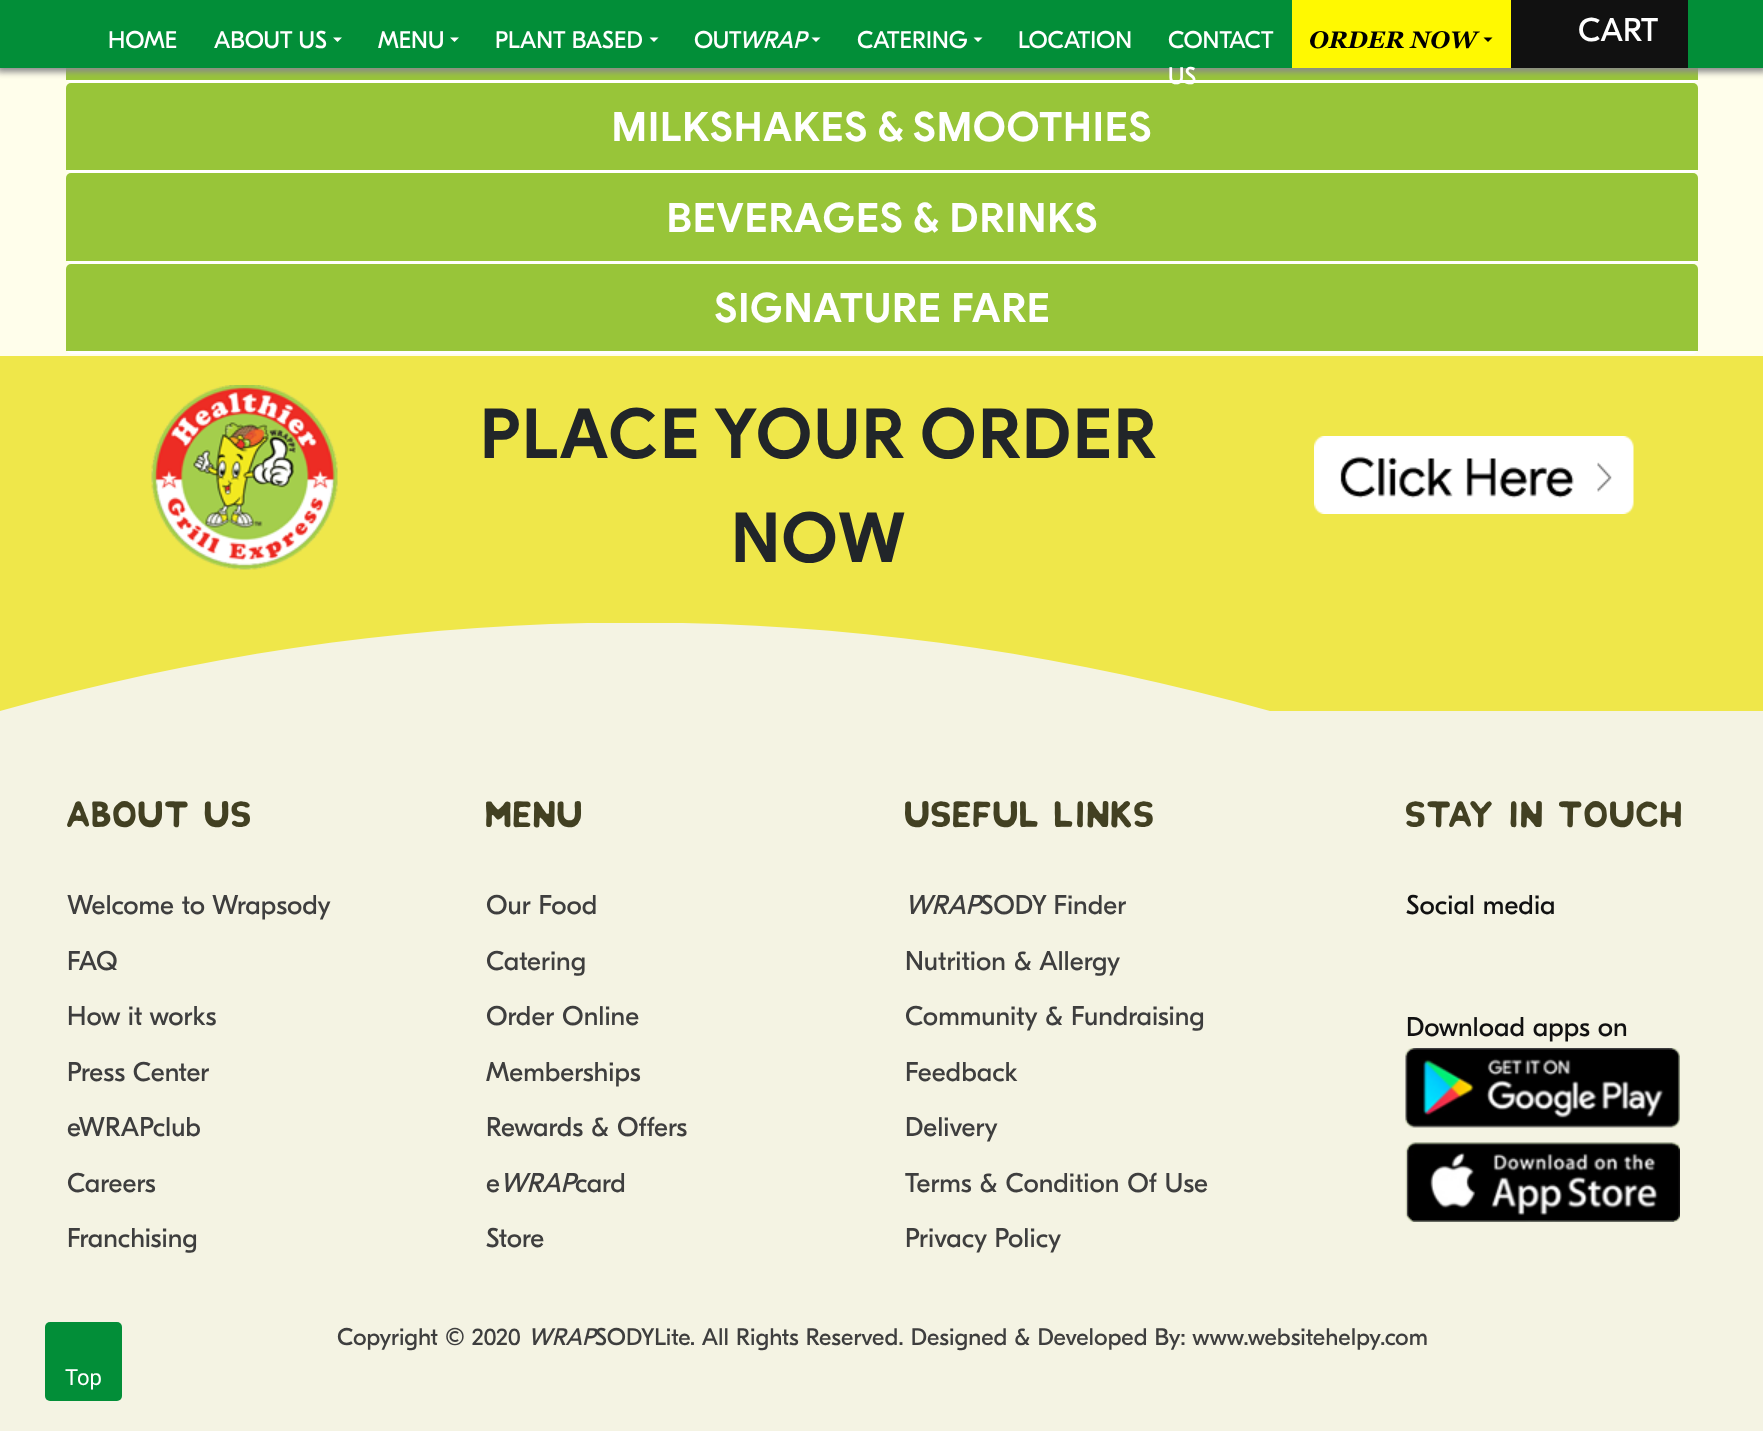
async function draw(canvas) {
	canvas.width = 1763;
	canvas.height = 1431;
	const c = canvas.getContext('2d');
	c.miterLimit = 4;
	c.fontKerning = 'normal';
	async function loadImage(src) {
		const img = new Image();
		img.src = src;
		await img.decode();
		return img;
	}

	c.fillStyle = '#fffeeb';
	c.fillRect(0, 0, 1763, 1431);
	c.fillStyle = '#fff';
	c.beginPath();
	c.roundRect(66, -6, 1632, 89, 6);
	c.fill();
	c.fillStyle = '#98c539';
	c.fillRect(66, 68, 1632, 12);
	c.fillStyle = '#8a8a8a';
	c.filter = 'blur(3px)';
	c.beginPath();
	c.rect(-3, -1, 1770, 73);
	c.fill();
	c.filter = 'none';
	c.fillStyle = '#028e38';
	c.fillRect(0, 0, 1763, 68);
	c.font = '24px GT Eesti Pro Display';
	c.fillStyle = '#fff';
	c.fillText('HOME', 108, 48);
	c.fillText('ABOUT US', 214, 48);
	c.beginPath();
	c.moveTo(333, 37.5);
	c.lineTo(342, 37.5);
	c.lineTo(337.5, 42);
	c.closePath();
	c.fill();
	c.fillText('MENU', 378, 48);
	c.beginPath();
	c.moveTo(450, 37.5);
	c.lineTo(459, 37.5);
	c.lineTo(454.5, 42);
	c.closePath();
	c.fill();
	c.fillText('PLANT BASED', 495, 48);
	c.beginPath();
	c.moveTo(649.5, 37.5);
	c.lineTo(658.5, 37.5);
	c.lineTo(654, 42);
	c.closePath();
	c.fill();
	c.fillText('OUT', 694, 48);
	c.font = 'italic 24px GT Eesti Pro Display';
	c.fillText('WRAP', 739, 48);
	c.beginPath();
	c.moveTo(811.5, 37.5);
	c.lineTo(820.5, 37.5);
	c.lineTo(816, 42);
	c.closePath();
	c.fill();
	c.font = '24px GT Eesti Pro Display';
	c.fillText('CATERING', 857, 48);
	c.beginPath();
	c.moveTo(973.5, 37.5);
	c.lineTo(982.5, 37.5);
	c.lineTo(978, 42);
	c.closePath();
	c.fill();
	c.fillText('LOCATION', 1018, 48);
	c.fillText('CONTACT', 1168, 48);
	c.beginPath();
	c.roundRect(66, 83, 1632, 90, 6);
	c.fill();
	c.fillStyle = '#98c539';
	c.beginPath();
	c.roundRect(66, 83, 1632, 87, [5, 5, 0, 0]);
	c.fill();
	c.fillStyle = '#fff';
	c.fillText('US', 1168, 84);
	c.fillStyle = '#fff901';
	c.fillRect(1292, 0, 219, 68);
	c.font = 'italic bold 24px Georgia';
	c.fillStyle = '#000';
	c.fillText('ORDER NOW', 1309, 48);
	c.beginPath();
	c.moveTo(1483.5, 37.5);
	c.lineTo(1492.5, 37.5);
	c.lineTo(1488, 42);
	c.closePath();
	c.fill();
	c.fillStyle = '#111';
	c.fillRect(1511, 0, 177, 68);
	c.font = '33px GT Eesti Pro Display';
	c.fillStyle = '#fff';
	c.fillText('CART', 1578, 41);
	c.font = 'bold 40.5px Google Sans';
	c.fillText('MILKSHAKES & SMOOTHIES', 611, 141);
	c.beginPath();
	c.roundRect(66, 173, 1632, 91, 6);
	c.fill();
	c.fillStyle = '#98c539';
	c.beginPath();
	c.roundRect(66, 173, 1632, 88, [5, 5, 0, 0]);
	c.fill();
	c.fillStyle = '#fff';
	c.fillText('BEVERAGES & DRINKS', 666, 232);
	c.beginPath();
	c.roundRect(66, 264, 1632, 90, 6);
	c.fill();
	c.fillStyle = '#98c539';
	c.beginPath();
	c.roundRect(66, 264, 1632, 87, [5, 5, 0, 0]);
	c.fill();
	c.fillStyle = '#fff';
	c.fillText('SIGNATURE FARE', 714, 322);
	c.fillStyle = '#efe74a';
	c.fillRect(0, 356, 1763, 355);
	c.drawImage(await loadImage('img1.png'), 151, 385, 187, 185);
	c.font = 'bold 69px Google Sans';
	c.fillStyle = '#212529';
	c.fillText('PLACE YOUR ORDER', 479, 458);
	c.fillText('NOW', 730, 562);
	c.drawImage(await loadImage('img2.png'), 1314, 436, 320, 78);
	c.save();
	c.beginPath();
	c.rect(0, 623, 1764, 88);
	c.clip();
	c.fillStyle = '#f4f3e3';
	c.beginPath();
	c.moveTo(0, 711);
	c.bezierCurveTo(423, 593, 847, 593, 1270, 711);
	c.bezierCurveTo(1693, 828, 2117, 828, 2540, 711);
	c.lineTo(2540, 799);
	c.lineTo(0, 799);
	c.closePath();
	c.fill();
	c.restore();
	c.fillStyle = '#f4f3e3';
	c.fillRect(0, 711, 1763, 720);
	c.font = '48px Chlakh';
	c.fillStyle = '#424022';
	c.fillText('About us', 67, 827);
	c.font = '27px GT Eesti Pro Display';
	c.fillStyle = '#3e3e3e';
	for (const [text, x, y] of [
		['Welcome to Wrapsody', 67, 914],
		['FAQ', 67, 970],
		['How it works', 67, 1025],
		['Press Center', 67, 1081],
		['eWRAPclub', 67, 1136],
		['Careers', 67, 1192],
		['Franchising', 67, 1247],
	]) {
		c.fillText(text, x, y);
	}
	c.font = '48px Chlakh';
	c.fillStyle = '#424022';
	c.fillText('Menu', 486, 827);
	c.font = '27px GT Eesti Pro Display';
	c.fillStyle = '#3e3e3e';
	for (const [text, x, y] of [
		['Our Food', 486, 914],
		['Catering', 486, 970],
		['Order Online', 486, 1025],
		['Memberships', 486, 1081],
		['Rewards & Offers', 486, 1136],
		['e', 486, 1192],
	]) {
		c.fillText(text, x, y);
	}
	c.font = 'italic 27px GT Eesti Pro Display';
	c.fillText('WRAP', 500, 1192);
	c.font = '27px GT Eesti Pro Display';
	c.fillText('card', 575, 1192);
	c.fillText('Store', 486, 1247);
	c.font = '48px Chlakh';
	c.fillStyle = '#424022';
	c.fillText('Useful links', 905, 827);
	c.font = 'italic 27px GT Eesti Pro Display';
	c.fillStyle = '#3e3e3e';
	c.fillText('WRAP', 905, 914);
	c.font = '27px GT Eesti Pro Display';
	for (const [text, x, y] of [
		['SODY Finder', 980, 914],
		['Nutrition & Allergy', 905, 970],
		['Community & Fundraising', 905, 1025],
		['Feedback', 905, 1081],
		['Delivery', 905, 1136],
		['Terms & Condition Of Use', 905, 1192],
		['Privacy Policy', 905, 1247],
	]) {
		c.fillText(text, x, y);
	}
	c.font = '48px Chlakh';
	c.fillStyle = '#424022';
	c.fillText('Stay in touch', 1406, 827);
	c.font = '27px GT Eesti Pro Display';
	c.fillStyle = '#111';
	c.fillText('Social media', 1406, 914);
	c.fillText('Download apps on', 1406, 1036);
	c.drawImage(await loadImage('img3.png'), 1405, 1048, 275, 80);
	c.drawImage(await loadImage('img4.png'), 1405, 1142, 275, 80);
	c.font = '24px GT Eesti Pro Display';
	c.fillStyle = '#3e3e3e';
	c.fillText('Copyright © 2020', 337, 1345);
	c.font = 'italic 24px GT Eesti Pro Display';
	c.fillText('WRAP', 528, 1345);
	c.font = '24px GT Eesti Pro Display';
	c.fillText('SODYLite. All Rights Reserved. Designed & Developed By: www.websitehelpy.com', 595, 1345);
	c.fillStyle = '#028e38';
	c.beginPath();
	c.roundRect(45, 1322, 77, 79, 5);
	c.fill();
	c.font = '22px Roboto';
	c.fillStyle = '#fff';
	c.fillText('Top', 65, 1385);
}

draw(document.querySelector('canvas'));
